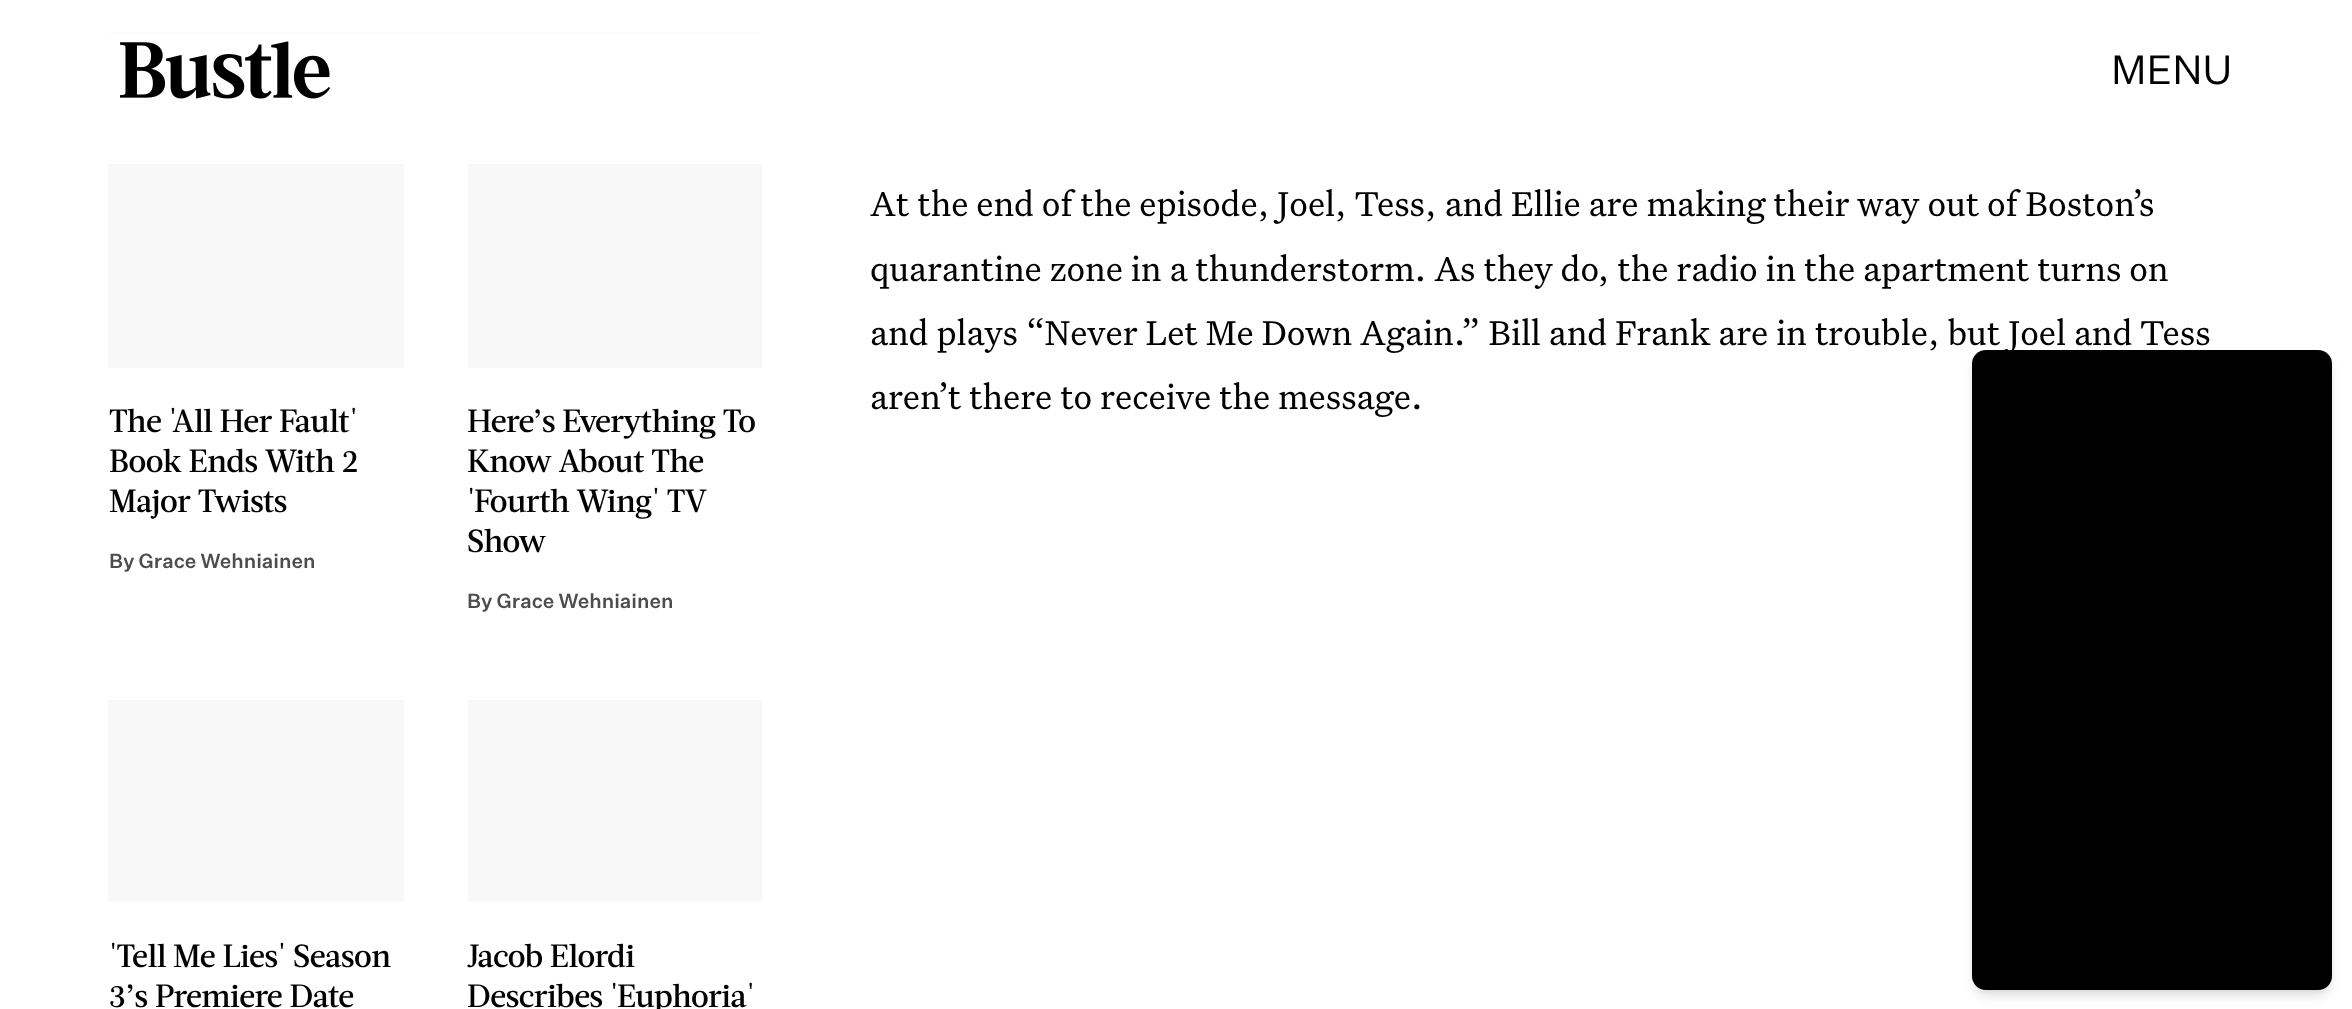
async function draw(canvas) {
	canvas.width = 2352;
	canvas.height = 1009;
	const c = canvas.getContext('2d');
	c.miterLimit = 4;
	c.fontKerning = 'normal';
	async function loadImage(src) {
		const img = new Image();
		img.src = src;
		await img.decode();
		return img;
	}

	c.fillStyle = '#fff';
	c.fillRect(0, 0, 2352, 1009);
	c.drawImage(await loadImage('img1.png'), 120, 41, 210, 58);
	c.font = '40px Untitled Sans';
	c.fillStyle = '#000';
	c.fillText('MENU', 2111, 84);
	c.font = '36.8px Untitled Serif';
	for (const [text, x, y] of [
		['At the end of the episode, Joel, Tess, and Ellie are making their way out of Boston’s', 870, 216],
		['quarantine zone in a thunderstorm. As they do, the radio in the apartment turns on', 870, 281],
		['and plays “Never Let Me Down Again.” Bill and Frank are in trouble, but Joel and Tess', 870, 345],
		['aren’t there to receive the message.', 870, 409],
	]) {
		c.fillText(text, x, y);
	}
	c.fillStyle = '#fcfcfc';
	c.fillRect(108, 32, 654, 2);
	c.fillStyle = '#f8f8f8';
	c.fillRect(108, 164, 296, 204);
	c.letterSpacing = '-0.3px';
	c.font = '500 32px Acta';
	c.fillStyle = '#000';
	for (const [text, x, y] of [
		['The \'All Her Fault\'', 109, 432],
		['Book Ends With 2', 109, 472],
		['Major Twists', 109, 512],
	]) {
		c.fillText(text, x, y);
	}
	c.letterSpacing = '0px';
	c.font = '500 20px Untitled Sans';
	c.fillStyle = '#4d4d4d';
	c.fillText('By Grace Wehniainen', 109, 568);
	c.fillStyle = '#f8f8f8';
	c.fillRect(468, 164, 294, 204);
	c.letterSpacing = '-0.3px';
	c.font = '500 32px Acta';
	c.fillStyle = '#000';
	for (const [text, x, y] of [
		['Here’s Everything To', 467, 432],
		['Know About The', 467, 472],
		['\'Fourth Wing\' TV', 467, 512],
		['Show', 467, 552],
	]) {
		c.fillText(text, x, y);
	}
	c.letterSpacing = '0px';
	c.font = '500 20px Untitled Sans';
	c.fillStyle = '#4d4d4d';
	c.fillText('By Grace Wehniainen', 467, 608);
	c.fillStyle = '#f8f8f8';
	c.fillRect(108, 700, 296, 202);
	c.letterSpacing = '-0.3px';
	c.font = '500 32px Acta';
	c.fillStyle = '#000';
	c.fillText('\'Tell Me Lies\' Season', 109, 967);
	c.fillText('3’s Premiere Date', 109, 1007);
	c.fillStyle = '#f8f8f8';
	c.fillRect(468, 700, 294, 202);
	c.fillStyle = '#000';
	c.fillText('Jacob Elordi', 467, 967);
	c.fillText('Describes \'Euphoria\'', 467, 1007);
	c.fillStyle = '#0000001a';
	c.filter = 'blur(4px)';
	c.beginPath();
	c.roundRect(1976, 358, 352, 632, 10);
	c.fill();
	c.filter = 'none';
	c.filter = 'blur(6px)';
	c.beginPath();
	c.roundRect(1974, 360, 356, 636, 12);
	c.fill();
	c.filter = 'none';
	c.fillStyle = '#000';
	c.beginPath();
	c.roundRect(1972, 350, 360, 640, 14);
	c.fill();
}

draw(document.querySelector('canvas'));
